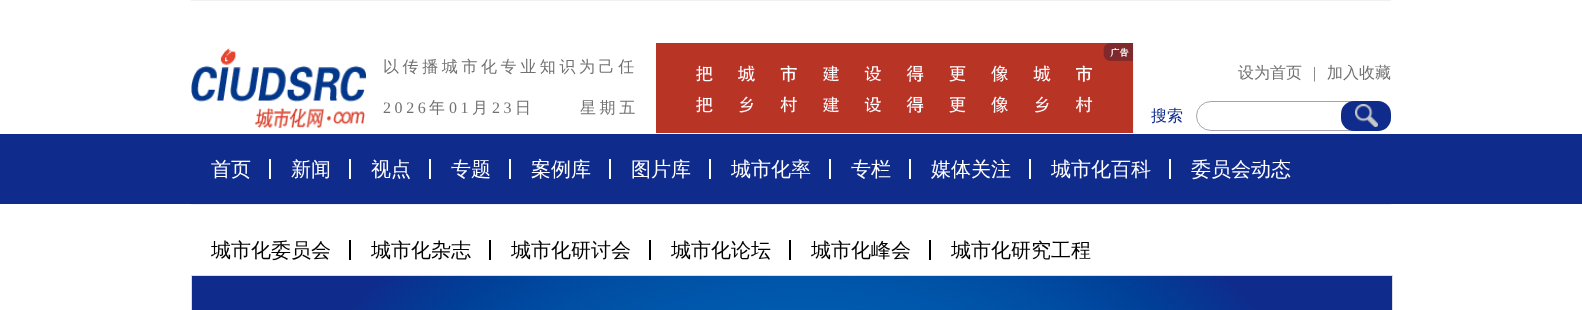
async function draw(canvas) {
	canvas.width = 1582;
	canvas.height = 310;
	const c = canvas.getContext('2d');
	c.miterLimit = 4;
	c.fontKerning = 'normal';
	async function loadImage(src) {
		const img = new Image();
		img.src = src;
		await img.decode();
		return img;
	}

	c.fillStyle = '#fff';
	c.fillRect(0, 0, 1582, 310);
	c.fillStyle = '#f1f0f0';
	c.fillRect(191, 0, 1200, 1);
	c.drawImage(await loadImage('img1.png'), 191, 48, 175, 80);
	c.letterSpacing = '3.6px';
	c.font = '500 16px WenQuanYi Zen Hei';
	c.fillStyle = '#727171';
	c.fillText('以传播城市化专业知识为己任', 383, 72);
	c.font = '16px Liberation Serif';
	c.fillText('2026', 383, 113);
	c.font = '500 16px WenQuanYi Zen Hei';
	c.fillText('年', 429, 113);
	c.font = '16px Liberation Serif';
	c.fillText('01', 449, 113);
	c.font = '500 16px WenQuanYi Zen Hei';
	c.fillText('月', 472, 113);
	c.font = '16px Liberation Serif';
	c.fillText('23', 492, 113);
	c.font = '500 16px WenQuanYi Zen Hei';
	c.fillText('日', 515, 113);
	c.fillText('星期五', 580, 113);
	c.fillStyle = '#f5f5f5';
	c.fillRect(1133, 43, 1, 90);
	c.drawImage(await loadImage('img2.png'), 656, 43, 477, 90);
	c.letterSpacing = '0px';
	c.fillStyle = '#727171';
	c.fillText('设为首页', 1238, 78);
	c.font = '16px Liberation Serif';
	c.fillText('|', 1313, 78);
	c.font = '500 16px WenQuanYi Zen Hei';
	c.fillText('加入收藏', 1327, 78);
	c.fillStyle = '#0f2b8c';
	c.fillText('搜索', 1151, 121);
	c.beginPath();
	c.roundRect(1196.5, 101.5, 194, 29, 14.5);
	c.strokeStyle = '#a8a2ae';
	c.stroke();
	c.beginPath();
	c.roundRect(1341, 101, 50, 30, 13);
	c.fill();
	c.drawImage(await loadImage('img3.png'), 1355, 104, 23, 23);
	c.fillRect(0, 134, 1582, 70);
	c.font = '500 20px WenQuanYi Zen Hei';
	c.fillStyle = '#fff';
	c.fillText('首页', 211, 176);
	c.fillRect(269, 159, 2, 20);
	c.fillText('新闻', 291, 176);
	c.fillRect(349, 159, 2, 20);
	c.fillText('视点', 371, 176);
	c.fillRect(429, 159, 2, 20);
	c.fillText('专题', 451, 176);
	c.fillRect(509, 159, 2, 20);
	c.fillText('案例库', 531, 176);
	c.fillRect(609, 159, 2, 20);
	c.fillText('图片库', 631, 176);
	c.fillRect(709, 159, 2, 20);
	c.fillText('城市化率', 731, 176);
	c.fillRect(829, 159, 2, 20);
	c.fillText('专栏', 851, 176);
	c.fillRect(909, 159, 2, 20);
	c.fillText('媒体关注', 931, 176);
	c.fillRect(1029, 159, 2, 20);
	c.fillText('城市化百科', 1051, 176);
	c.fillRect(1169, 159, 2, 20);
	c.fillText('委员会动态', 1191, 176);
	c.fillStyle = '#f1f0f0';
	c.fillRect(191, 204, 1200, 1);
	c.fillStyle = '#000';
	c.fillText('城市化委员会', 211, 257);
	c.fillRect(349, 240, 2, 20);
	c.fillText('城市化杂志', 371, 257);
	c.fillRect(489, 240, 2, 20);
	c.fillText('城市化研讨会', 511, 257);
	c.fillRect(649, 240, 2, 20);
	c.fillText('城市化论坛', 671, 257);
	c.fillRect(789, 240, 2, 20);
	c.fillText('城市化峰会', 811, 257);
	c.fillRect(929, 240, 2, 20);
	c.fillText('城市化研究工程', 951, 257);
	c.strokeStyle = '#ddd';
	c.strokeRect(191.5, 275.5, 1201, 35);
	c.drawImage(await loadImage('img4.png'), 192, 276, 1200, 34);
}

draw(document.querySelector('canvas'));
